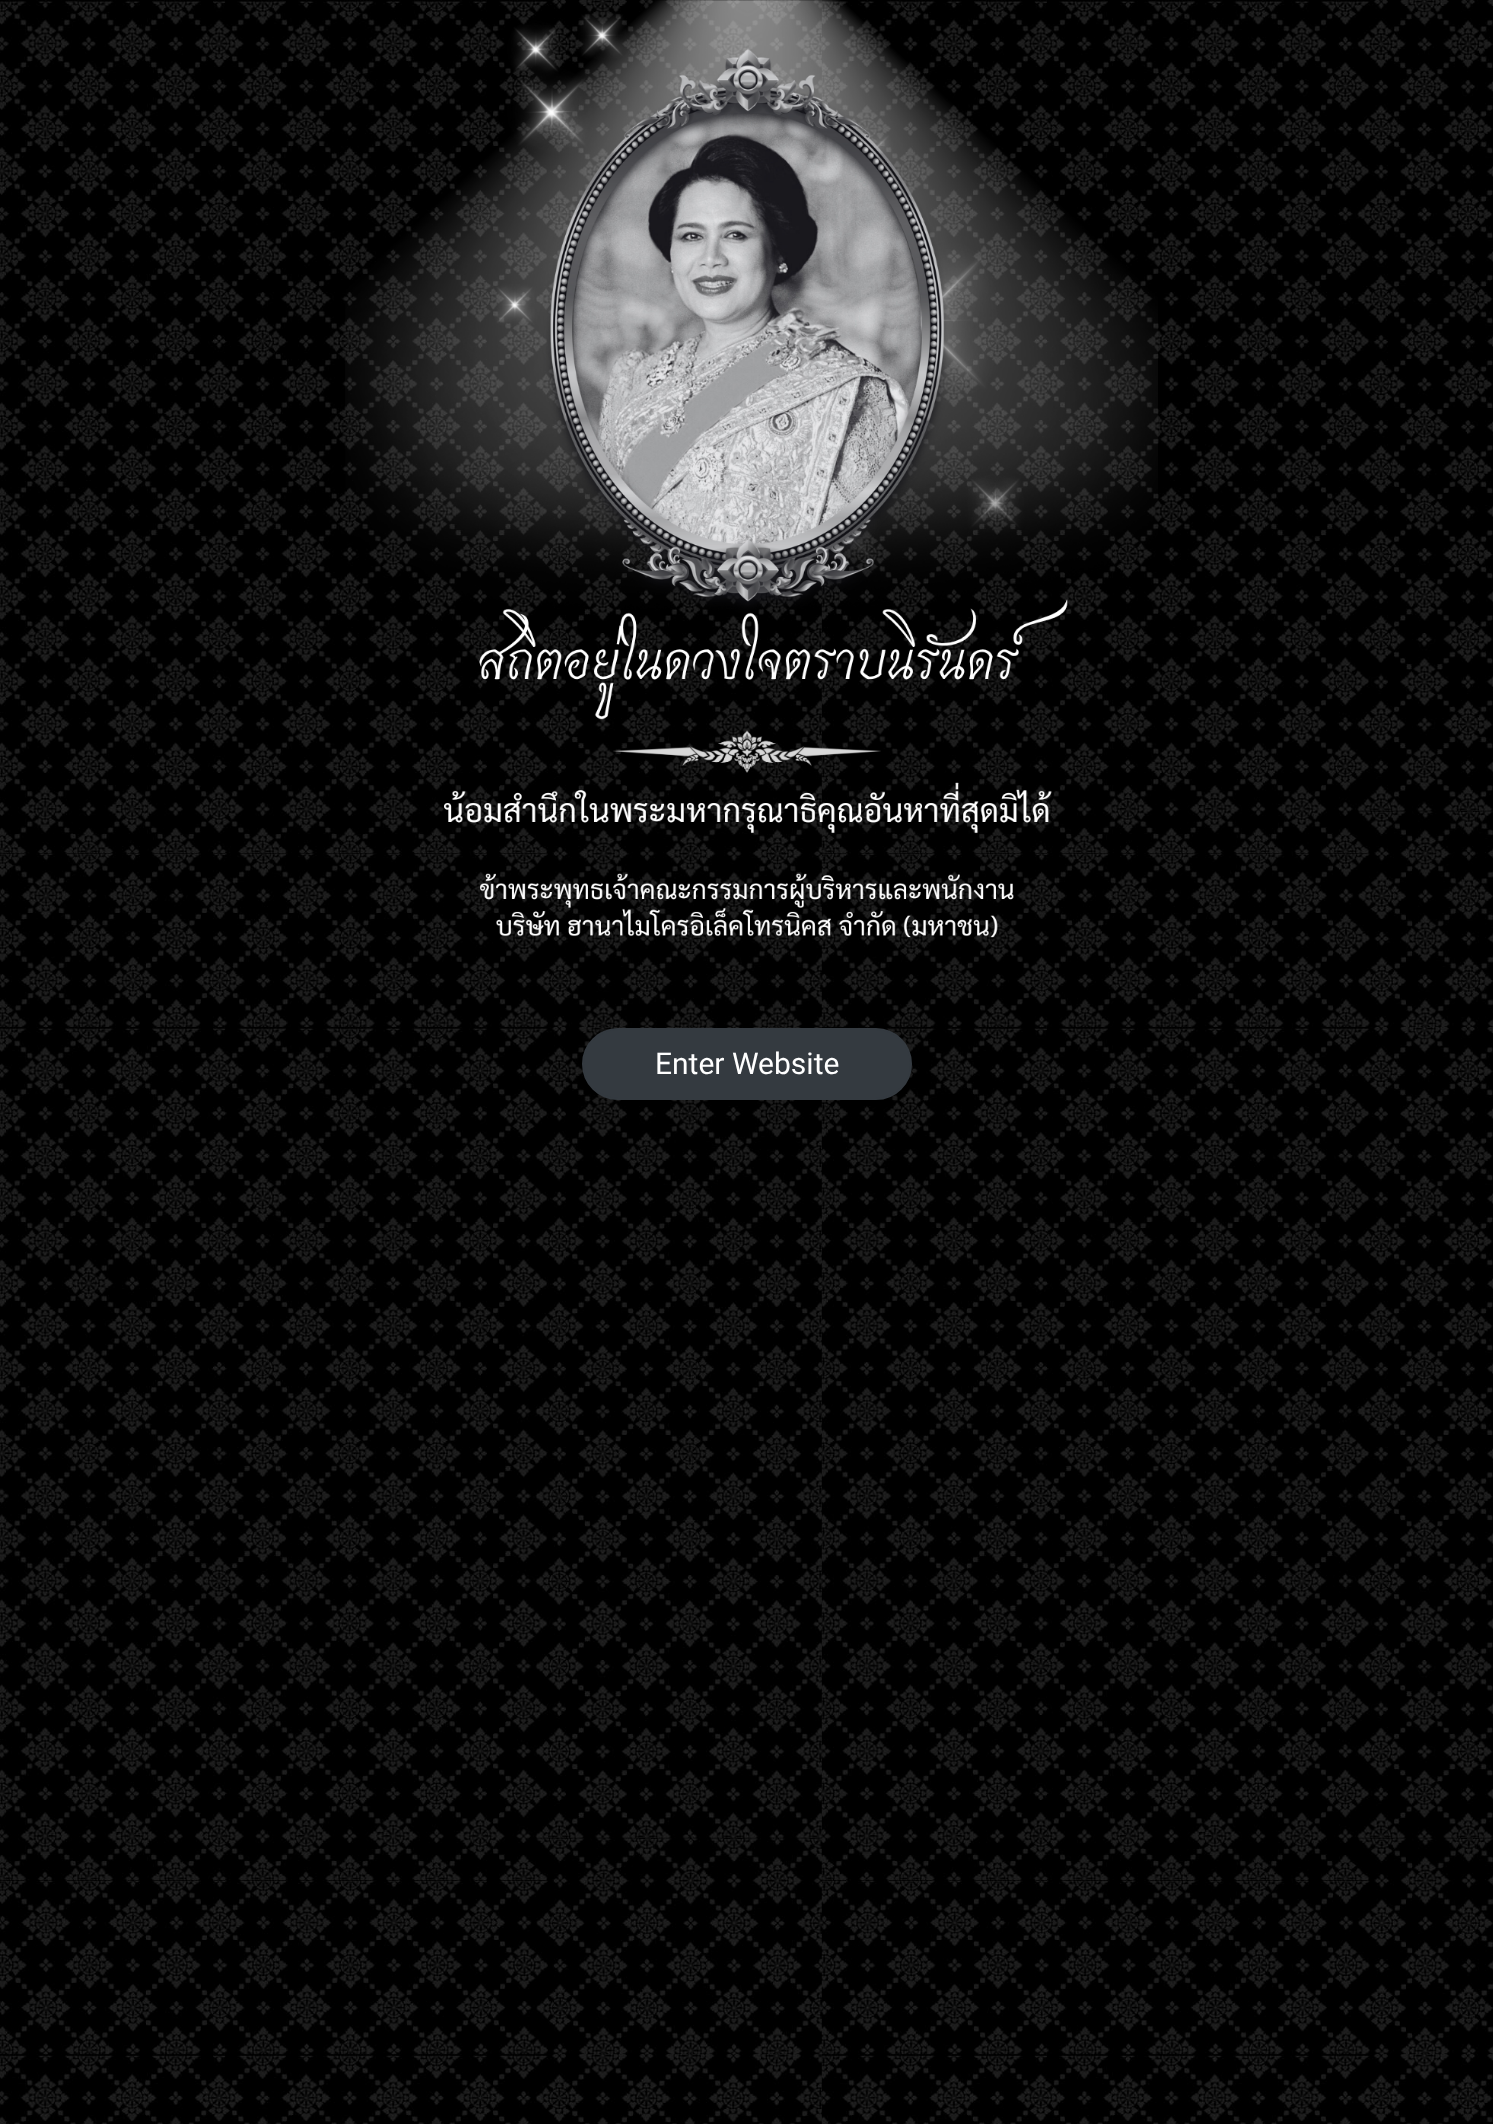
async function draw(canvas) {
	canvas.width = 1493;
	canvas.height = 2124;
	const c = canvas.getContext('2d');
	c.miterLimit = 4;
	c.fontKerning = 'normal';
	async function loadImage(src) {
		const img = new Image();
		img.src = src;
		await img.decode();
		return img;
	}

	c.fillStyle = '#fff';
	c.fillRect(0, 0, 1493, 2124);
	c.drawImage(await loadImage('img1.png'), 0, 0, 1493, 2124);
	c.drawImage(await loadImage('img2.png'), 345, 0, 813, 938);
	c.fillStyle = '#343a40';
	c.beginPath();
	c.roundRect(583, 1029, 328, 70, 35);
	c.fill();
	c.strokeStyle = '#343a40';
	c.lineWidth = 2;
	c.stroke();
	c.font = '30px Roboto';
	c.fillStyle = '#fff';
	c.fillText('Enter Website', 655, 1074);
}

draw(document.querySelector('canvas'));
